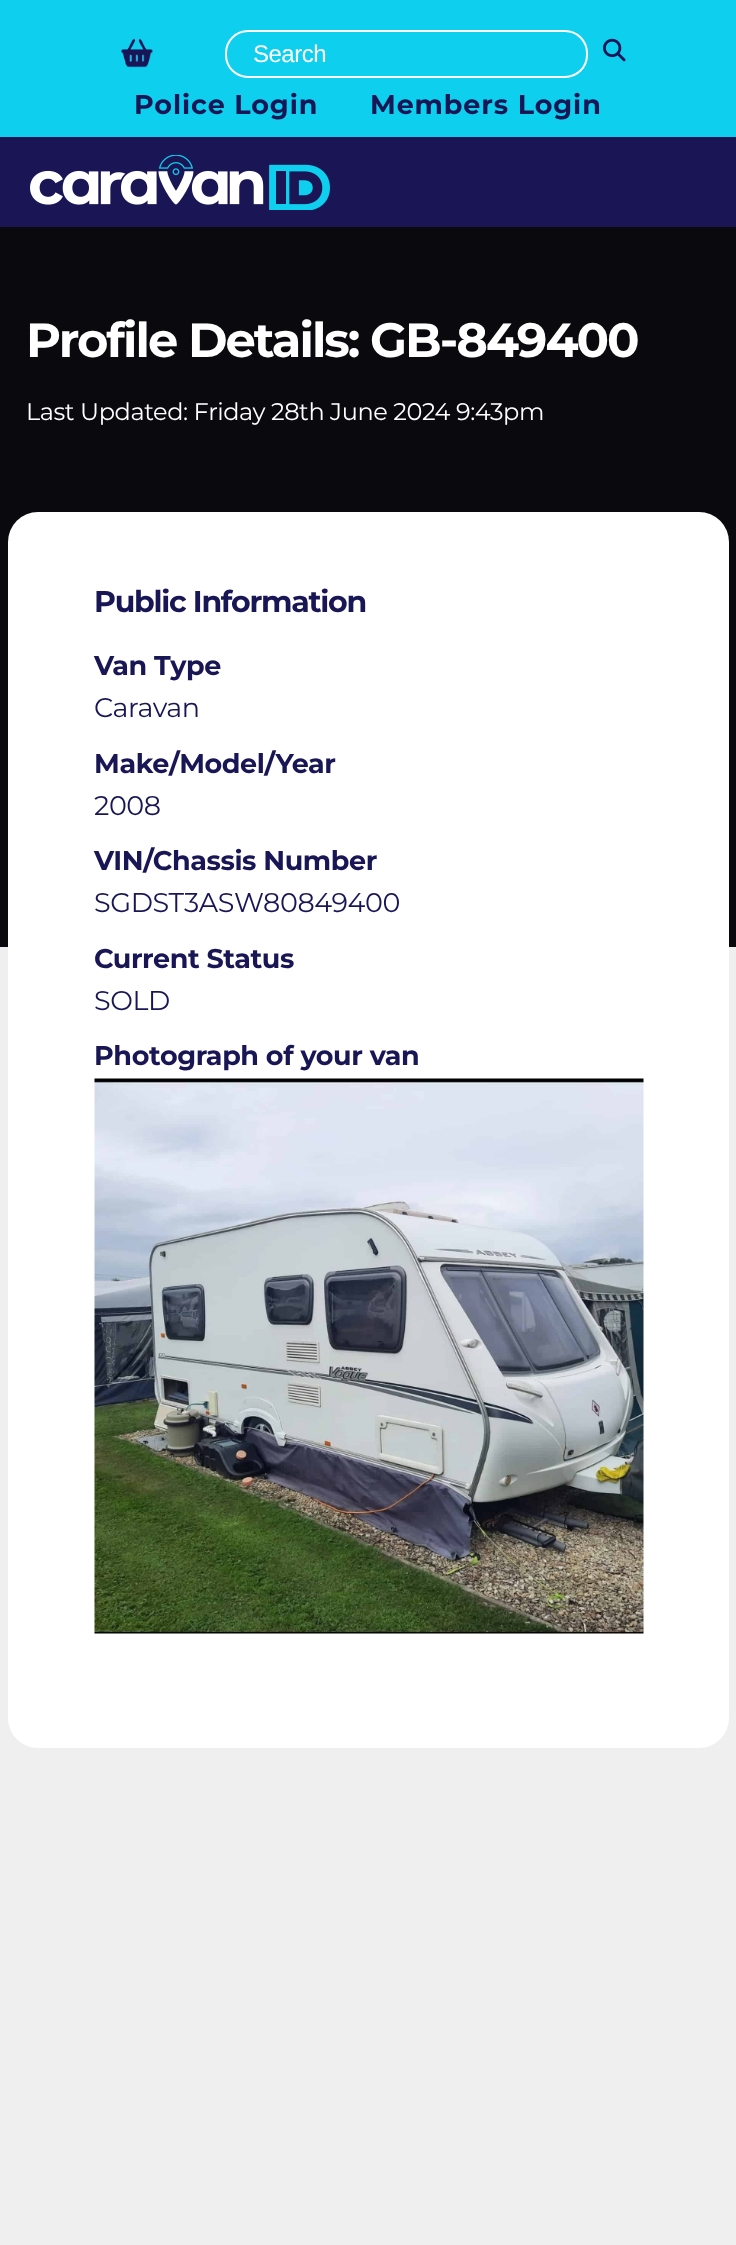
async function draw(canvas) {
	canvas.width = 736;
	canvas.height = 2245;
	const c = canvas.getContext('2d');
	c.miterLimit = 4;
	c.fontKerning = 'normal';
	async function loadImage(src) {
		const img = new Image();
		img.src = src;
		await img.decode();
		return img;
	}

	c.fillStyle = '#0fcfef';
	c.fillRect(0, 0, 736, 2245);
	c.drawImage(await loadImage('img1.png'), 121, 38, 32, 30);
	c.beginPath();
	c.roundRect(226, 31, 361, 46, 22);
	c.strokeStyle = '#fff';
	c.lineWidth = 2;
	c.stroke();
	c.letterSpacing = '-0.5px';
	c.font = '24px Liberation Sans';
	c.fillStyle = '#fff';
	c.fillText('Search', 253, 62);
	c.drawImage(await loadImage('img2.png'), 603, 38, 23, 24);
	c.letterSpacing = '0.9px';
	c.font = 'bold 27px Montserrat';
	c.fillStyle = '#191656';
	c.fillText('Police Login', 134, 114);
	c.fillText('Members Login', 370, 114);
	c.fillStyle = '#1a1656';
	c.fillRect(0, 137, 736, 90);
	c.drawImage(await loadImage('img3.png'), 30, 155, 300, 55);
	c.fillStyle = '#efefef';
	c.fillRect(0, 947, 736, 1298);
	c.fillStyle = '#0a090e';
	c.fillRect(0, 227, 736, 720);
	c.letterSpacing = '-2px';
	c.font = 'bold 48px Montserrat';
	c.fillStyle = '#fff';
	c.fillText('Profile Details: GB-849400', 26, 357);
	c.letterSpacing = '-0.4px';
	c.font = '24px Montserrat';
	c.fillText('Last Updated: Friday 28th June 2024 9:43pm', 26, 420);
	c.beginPath();
	c.roundRect(8, 512, 721, 1236, 30);
	c.fill();
	c.letterSpacing = '-1.25px';
	c.font = 'bold 30px Montserrat';
	c.fillStyle = '#191656';
	c.fillText('Public Information', 94, 612);
	c.letterSpacing = '-0.4px';
	c.font = 'bold 27px Montserrat';
	c.fillText('Van Type', 94, 675);
	c.font = '27px Montserrat';
	c.fillText('Caravan', 94, 717);
	c.font = 'bold 27px Montserrat';
	c.fillText('Make/Model/Year', 94, 773);
	c.font = '27px Montserrat';
	c.fillText('2008', 94, 815);
	c.font = 'bold 27px Montserrat';
	c.fillText('VIN/Chassis Number', 94, 870);
	c.font = '27px Montserrat';
	c.fillText('SGDST3ASW80849400', 94, 912);
	c.font = 'bold 27px Montserrat';
	c.fillText('Current Status', 94, 968);
	c.font = '27px Montserrat';
	c.fillText('SOLD', 94, 1010);
	c.font = 'bold 27px Montserrat';
	c.fillText('Photograph of your van', 94, 1065);
	c.drawImage(await loadImage('img4.png'), 94, 1078, 550, 556);
}

draw(document.querySelector('canvas'));
